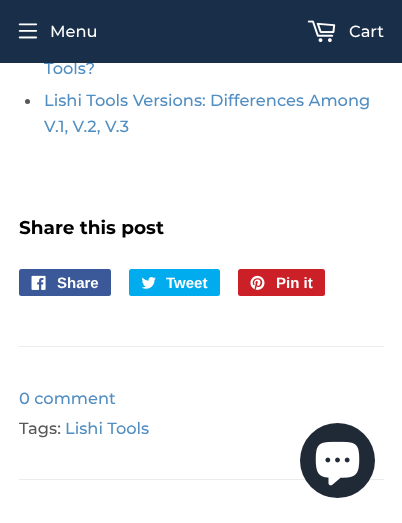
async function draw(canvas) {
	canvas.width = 402;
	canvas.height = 523;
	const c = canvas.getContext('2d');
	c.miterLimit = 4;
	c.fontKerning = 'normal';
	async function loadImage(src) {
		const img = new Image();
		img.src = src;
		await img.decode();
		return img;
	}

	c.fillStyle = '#fff';
	c.fillRect(0, 0, 402, 523);
	c.font = '500 16.25px Montserrat';
	c.fillStyle = '#528ec1';
	c.fillText('Tools?', 44, 74);
	c.fillStyle = '#182e49';
	c.fillRect(0, 0, 402, 63);
	c.drawImage(await loadImage('img1.png'), 18, 23, 20, 16);
	c.fillStyle = '#fff';
	c.fillText('Menu', 50, 37);
	c.drawImage(await loadImage('img2.png'), 307, 20, 29, 23);
	c.fillText('Cart', 349, 37);
	c.fillStyle = '#585858';
	c.beginPath();
	c.arc(27.5, 101.5, 2.5, 0, 2 * Math.PI);
	c.fill();
	c.fillStyle = '#528ec1';
	c.fillText('Lishi Tools Versions: Differences Among', 44, 106);
	c.fillText('V.1, V.2, V.3', 44, 132);
	c.font = 'bold 18.5px Montserrat';
	c.fillStyle = '#000';
	c.fillText('Share this post', 19, 234);
	c.fillStyle = '#3b5998';
	c.beginPath();
	c.roundRect(19, 269, 92, 27, 2.5);
	c.fill();
	c.drawImage(await loadImage('img3.png'), 31, 275, 15, 15);
	c.font = 'bold 15px Liberation Sans';
	c.fillStyle = '#fff';
	c.fillText('Share', 57, 288);
	c.fillStyle = '#00aced';
	c.beginPath();
	c.roundRect(129, 269, 91, 27, 2.5);
	c.fill();
	c.drawImage(await loadImage('img4.png'), 141, 277, 15, 12);
	c.fillStyle = '#fff';
	c.fillText('Tweet', 166, 288);
	c.fillStyle = '#cb2027';
	c.beginPath();
	c.roundRect(238, 269, 87, 27, 2.5);
	c.fill();
	c.drawImage(await loadImage('img5.png'), 250, 275, 15, 15);
	c.fillStyle = '#fff';
	c.fillText('Pin it', 276, 288);
	c.fillStyle = '#ececec';
	c.fillRect(19, 346, 365, 1);
	c.font = '500 16.25px Montserrat';
	c.fillStyle = '#528ec1';
	c.fillText('0 comment', 19, 404);
	c.fillStyle = '#585858';
	c.fillText('Tags:', 19, 434);
	c.fillStyle = '#528ec1';
	c.fillText('Lishi Tools', 65, 434);
	c.fillStyle = '#ececec';
	c.fillRect(19, 479, 365, 1);
	c.fillStyle = '#202a36';
	c.beginPath();
	c.arc(337.5, 460.5, 37.5, 0, 2 * Math.PI);
	c.fill();
	c.drawImage(await loadImage('img6.png'), 315, 441, 45, 45);
}

draw(document.querySelector('canvas'));
